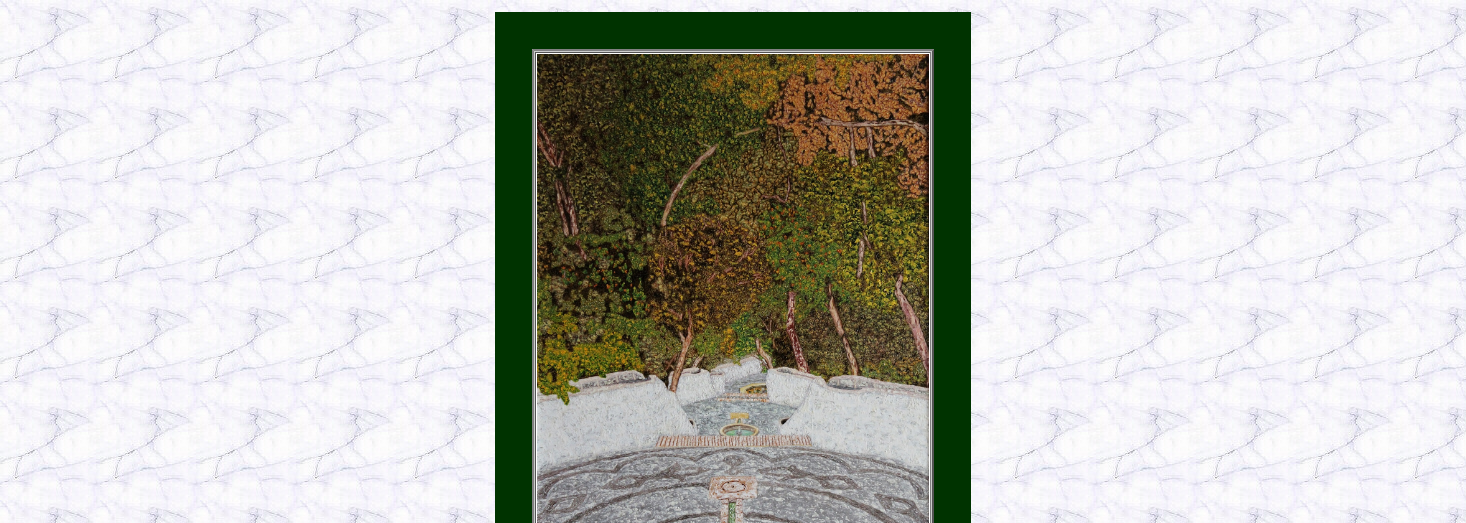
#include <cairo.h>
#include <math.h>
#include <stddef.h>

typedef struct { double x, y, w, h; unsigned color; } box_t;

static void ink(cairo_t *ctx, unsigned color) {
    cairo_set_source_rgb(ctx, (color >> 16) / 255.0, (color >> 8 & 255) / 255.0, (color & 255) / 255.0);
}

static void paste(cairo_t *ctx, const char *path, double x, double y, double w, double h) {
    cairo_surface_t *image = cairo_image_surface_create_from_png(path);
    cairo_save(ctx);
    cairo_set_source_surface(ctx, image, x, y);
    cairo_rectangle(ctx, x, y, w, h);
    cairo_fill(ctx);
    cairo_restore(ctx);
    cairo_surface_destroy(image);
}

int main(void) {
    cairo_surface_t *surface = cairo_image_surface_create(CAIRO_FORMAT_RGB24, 1466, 523);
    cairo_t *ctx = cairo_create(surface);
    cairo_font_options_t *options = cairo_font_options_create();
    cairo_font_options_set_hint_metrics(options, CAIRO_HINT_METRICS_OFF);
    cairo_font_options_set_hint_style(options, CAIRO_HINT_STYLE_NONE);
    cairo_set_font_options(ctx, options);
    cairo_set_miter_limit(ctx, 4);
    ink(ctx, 0xFFFFFF);
    cairo_paint(ctx);
    paste(ctx, "media/1.png", 0, 0, 1466, 523);
    ink(ctx, 0x003300);
    cairo_rectangle(ctx, 495, 12, 476, 511);
    cairo_fill(ctx);
    ink(ctx, 0xCCCCCC);
    cairo_rectangle(ctx, 532, 49, 402, 474);
    cairo_fill(ctx);
    ink(ctx, 0x808080);
    cairo_new_path(ctx);
    cairo_move_to(ctx, 532, 49);
    cairo_line_to(ctx, 934, 49);
    cairo_line_to(ctx, 932, 51);
    cairo_line_to(ctx, 534, 51);
    cairo_close_path(ctx);
    cairo_fill(ctx);
    ink(ctx, 0x555555);
    cairo_new_path(ctx);
    cairo_move_to(ctx, 934, 49);
    cairo_line_to(ctx, 934, 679);
    cairo_line_to(ctx, 932, 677);
    cairo_line_to(ctx, 932, 51);
    cairo_close_path(ctx);
    cairo_fill(ctx);
    ink(ctx, 0x808080);
    cairo_new_path(ctx);
    cairo_move_to(ctx, 532, 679);
    cairo_line_to(ctx, 532, 49);
    cairo_line_to(ctx, 534, 51);
    cairo_line_to(ctx, 534, 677);
    cairo_close_path(ctx);
    cairo_fill(ctx);
    {
        static const box_t items[] = {
            {536, 53, 394, 470, 0xFFFFFF},
            {535, 52, 396, 1, 0x555555},
            {930, 52, 1, 471, 0x808080},
            {535, 52, 1, 471, 0x555555},
        };
        for (size_t i = 0; i < sizeof items / sizeof *items; i++) {
            ink(ctx, items[i].color);
            cairo_rectangle(ctx, items[i].x, items[i].y, items[i].w, items[i].h);
            cairo_fill(ctx);
        }
    }
    paste(ctx, "media/2.png", 537, 54, 392, 469);
    cairo_surface_write_to_png(surface, "image.png");
    cairo_font_options_destroy(options);
    cairo_destroy(ctx);
    cairo_surface_destroy(surface);
    return 0;
}
